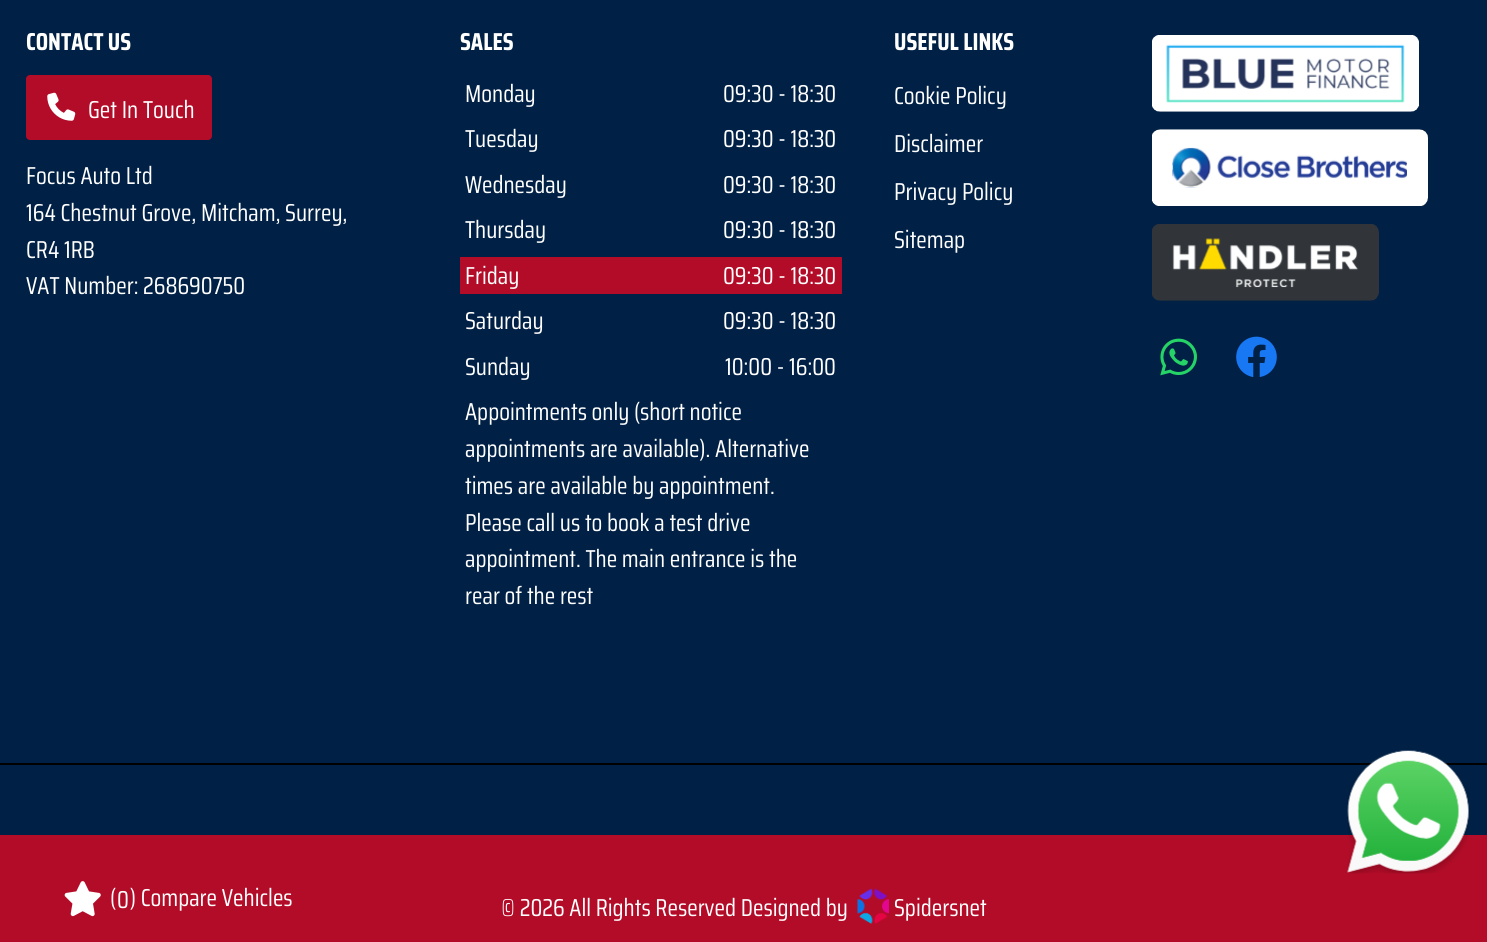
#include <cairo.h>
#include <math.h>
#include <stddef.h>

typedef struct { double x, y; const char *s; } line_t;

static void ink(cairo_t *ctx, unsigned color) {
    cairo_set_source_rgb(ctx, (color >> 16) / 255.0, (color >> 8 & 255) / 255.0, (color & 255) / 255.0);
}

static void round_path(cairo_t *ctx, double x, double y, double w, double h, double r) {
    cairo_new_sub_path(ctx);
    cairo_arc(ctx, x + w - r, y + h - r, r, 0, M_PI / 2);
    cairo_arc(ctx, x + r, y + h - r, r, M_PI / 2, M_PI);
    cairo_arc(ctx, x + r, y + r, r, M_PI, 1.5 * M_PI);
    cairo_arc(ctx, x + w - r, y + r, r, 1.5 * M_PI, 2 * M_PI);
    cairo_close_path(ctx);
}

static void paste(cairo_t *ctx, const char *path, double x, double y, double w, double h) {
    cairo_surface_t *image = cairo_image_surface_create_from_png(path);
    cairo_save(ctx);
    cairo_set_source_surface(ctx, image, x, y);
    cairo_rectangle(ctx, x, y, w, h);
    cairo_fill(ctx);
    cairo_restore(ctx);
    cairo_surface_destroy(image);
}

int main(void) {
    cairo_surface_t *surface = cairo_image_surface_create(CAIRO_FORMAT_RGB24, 1487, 942);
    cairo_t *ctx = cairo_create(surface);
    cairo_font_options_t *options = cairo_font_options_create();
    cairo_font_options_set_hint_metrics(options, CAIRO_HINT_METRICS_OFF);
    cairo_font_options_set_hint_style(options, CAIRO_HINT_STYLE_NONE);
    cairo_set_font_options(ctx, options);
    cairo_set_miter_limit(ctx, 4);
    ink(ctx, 0x002045);
    cairo_paint(ctx);
    cairo_select_font_face(ctx, "Saira Condensed", CAIRO_FONT_SLANT_NORMAL, CAIRO_FONT_WEIGHT_BOLD);
    cairo_set_font_size(ctx, 24.5);
    ink(ctx, 0xFFFFFF);
    cairo_move_to(ctx, 26, 50);
    cairo_show_text(ctx, "CONTACT US");
    ink(ctx, 0xB30C28);
    round_path(ctx, 26, 75, 186, 65, 4);
    cairo_fill(ctx);
    paste(ctx, "media/1.png", 47, 92, 29, 29);
    cairo_select_font_face(ctx, "Saira Condensed", CAIRO_FONT_SLANT_NORMAL, CAIRO_FONT_WEIGHT_NORMAL);
    ink(ctx, 0xFFFFFF);
    {
        static const line_t items[] = {
            {88, 118, "Get In Touch"},
            {26, 184, "Focus Auto Ltd"},
            {26, 221, "164 Chestnut Grove, Mitcham, Surrey,"},
            {26, 258, "CR4 1RB"},
            {26, 294, "VAT Number: 268690750"},
        };
        for (size_t i = 0; i < sizeof items / sizeof *items; i++) {
            cairo_move_to(ctx, items[i].x, items[i].y);
            cairo_show_text(ctx, items[i].s);
        }
    }
    cairo_select_font_face(ctx, "Saira Condensed", CAIRO_FONT_SLANT_NORMAL, CAIRO_FONT_WEIGHT_BOLD);
    cairo_move_to(ctx, 460, 50);
    cairo_show_text(ctx, "SALES");
    cairo_select_font_face(ctx, "Saira Condensed", CAIRO_FONT_SLANT_NORMAL, CAIRO_FONT_WEIGHT_NORMAL);
    {
        static const line_t items[] = {
            {465, 102, "Monday"},
            {723, 102, "09:30 - 18:30"},
            {465, 147, "Tuesday"},
            {723, 147, "09:30 - 18:30"},
            {465, 193, "Wednesday"},
            {723, 193, "09:30 - 18:30"},
            {465, 238, "Thursday"},
            {723, 238, "09:30 - 18:30"},
        };
        for (size_t i = 0; i < sizeof items / sizeof *items; i++) {
            cairo_move_to(ctx, items[i].x, items[i].y);
            cairo_show_text(ctx, items[i].s);
        }
    }
    ink(ctx, 0xB30C28);
    cairo_rectangle(ctx, 460, 257, 382, 37);
    cairo_fill(ctx);
    ink(ctx, 0xFFFFFF);
    {
        static const line_t items[] = {
            {465, 284, "Friday"},
            {723, 284, "09:30 - 18:30"},
            {465, 329, "Saturday"},
            {723, 329, "09:30 - 18:30"},
            {465, 375, "Sunday"},
            {725, 375, "10:00 - 16:00"},
            {465, 420, "Appointments only (short notice"},
            {465, 457, "appointments are available). Alternative"},
            {465, 494, "times are available by appointment."},
            {465, 531, "Please call us to book a test drive"},
            {465, 567, "appointment. The main entrance is the"},
            {465, 604, "rear of the rest"},
        };
        for (size_t i = 0; i < sizeof items / sizeof *items; i++) {
            cairo_move_to(ctx, items[i].x, items[i].y);
            cairo_show_text(ctx, items[i].s);
        }
    }
    cairo_select_font_face(ctx, "Saira Condensed", CAIRO_FONT_SLANT_NORMAL, CAIRO_FONT_WEIGHT_BOLD);
    cairo_move_to(ctx, 894, 50);
    cairo_show_text(ctx, "USEFUL LINKS");
    cairo_select_font_face(ctx, "Saira Condensed", CAIRO_FONT_SLANT_NORMAL, CAIRO_FONT_WEIGHT_NORMAL);
    {
        static const line_t items[] = {
            {894, 104, "Cookie Policy"},
            {894, 152, "Disclaimer"},
            {894, 200, "Privacy Policy"},
            {894, 248, "Sitemap"},
        };
        for (size_t i = 0; i < sizeof items / sizeof *items; i++) {
            cairo_move_to(ctx, items[i].x, items[i].y);
            cairo_show_text(ctx, items[i].s);
        }
    }
    paste(ctx, "media/2.png", 1152, 35, 267, 77);
    paste(ctx, "media/3.png", 1152, 129, 276, 77);
    paste(ctx, "media/4.png", 1152, 224, 227, 77);
    paste(ctx, "media/5.png", 1160, 338, 37, 38);
    paste(ctx, "media/6.png", 1236, 336, 41, 41);
    ink(ctx, 0x000000);
    cairo_rectangle(ctx, 0, 763, 1487, 2);
    cairo_fill(ctx);
    ink(ctx, 0xB30C28);
    cairo_rectangle(ctx, 0, 835, 1487, 107);
    cairo_fill(ctx);
    ink(ctx, 0xFFFFFF);
    cairo_move_to(ctx, 501, 916);
    cairo_show_text(ctx, "© 2026 All Rights Reserved Designed by");
    paste(ctx, "media/7.png", 857, 888, 32, 36);
    cairo_move_to(ctx, 894, 916);
    cairo_show_text(ctx, "Spidersnet");
    paste(ctx, "media/8.png", 64, 881, 37, 36);
    {
        static const line_t items[] = {
            {110, 906, "("},
            {117, 908, "0"},
            {130, 906, ") Compare Vehicles"},
        };
        for (size_t i = 0; i < sizeof items / sizeof *items; i++) {
            cairo_move_to(ctx, items[i].x, items[i].y);
            cairo_show_text(ctx, items[i].s);
        }
    }
    paste(ctx, "media/9.png", 1347, 750, 123, 124);
    cairo_surface_write_to_png(surface, "image.png");
    cairo_font_options_destroy(options);
    cairo_destroy(ctx);
    cairo_surface_destroy(surface);
    return 0;
}
